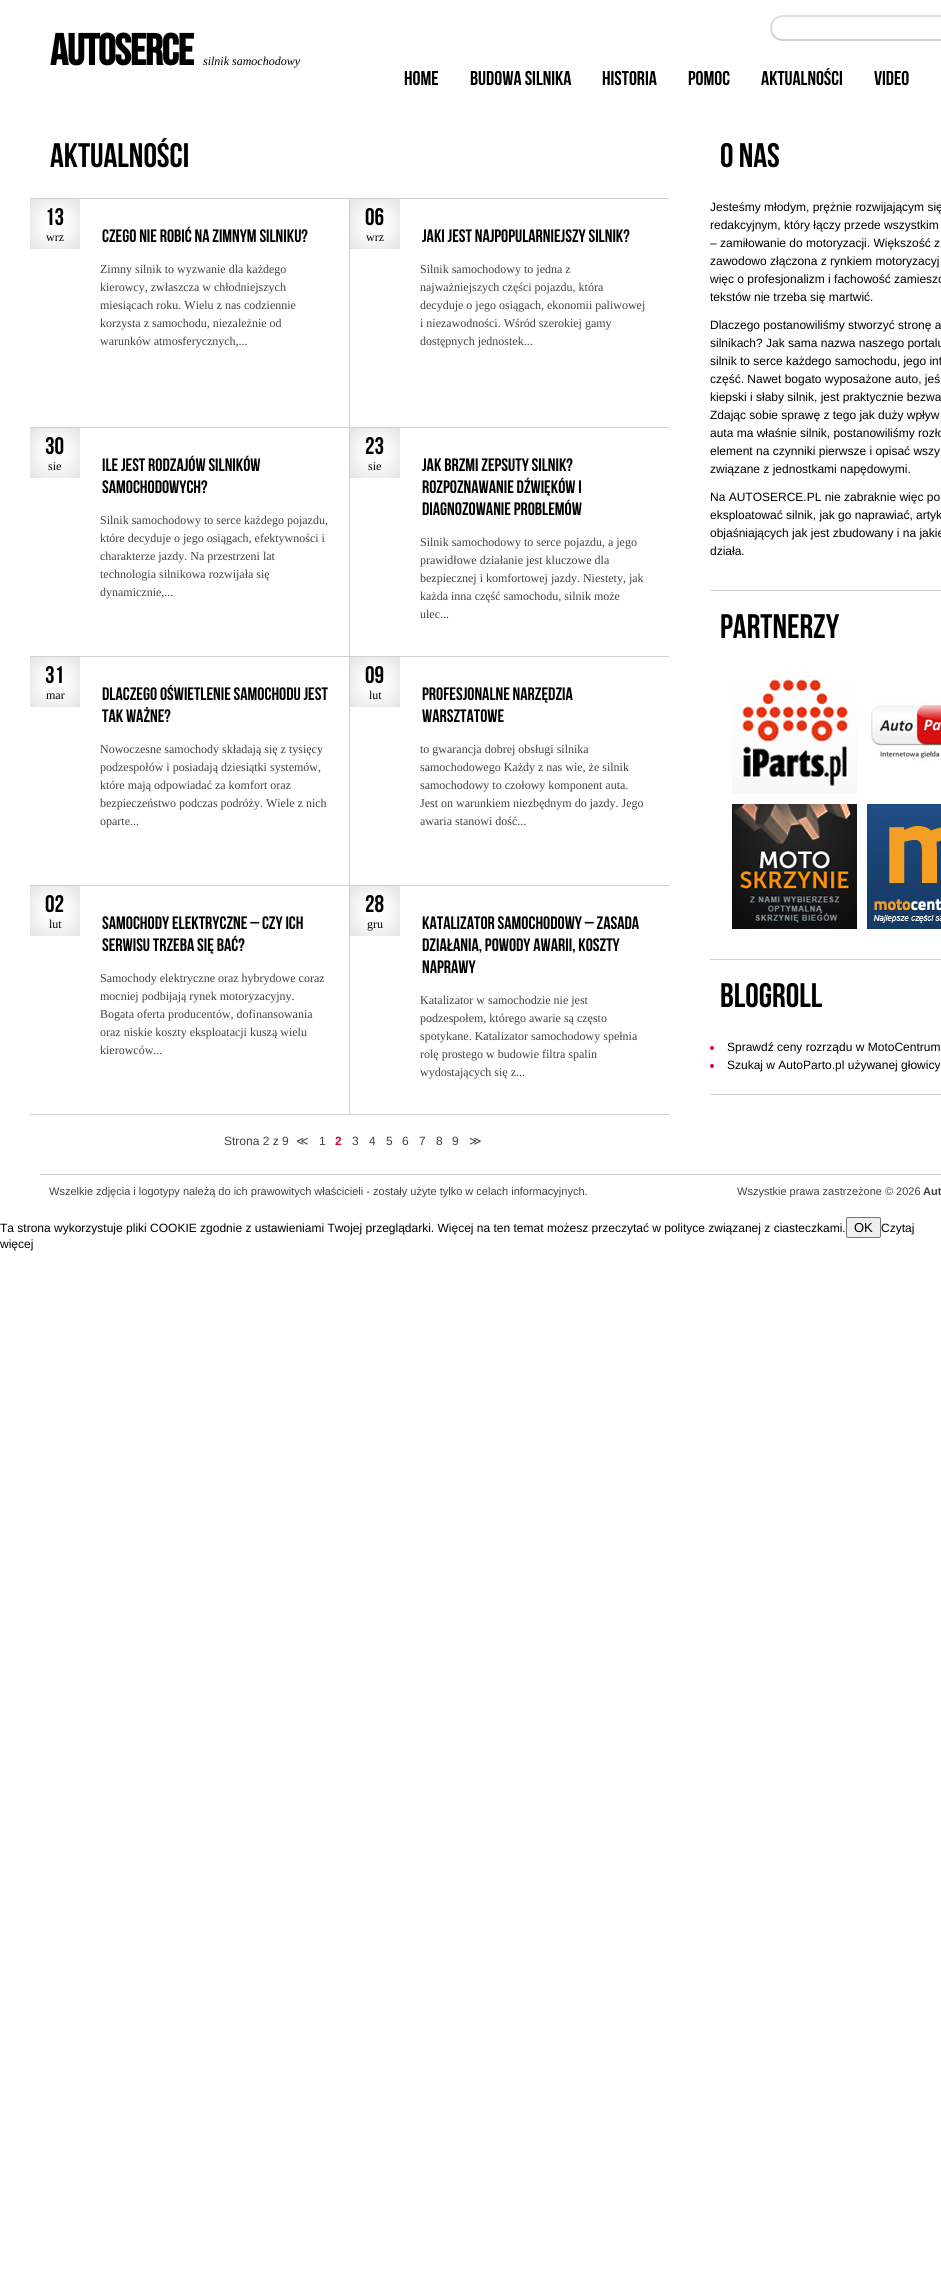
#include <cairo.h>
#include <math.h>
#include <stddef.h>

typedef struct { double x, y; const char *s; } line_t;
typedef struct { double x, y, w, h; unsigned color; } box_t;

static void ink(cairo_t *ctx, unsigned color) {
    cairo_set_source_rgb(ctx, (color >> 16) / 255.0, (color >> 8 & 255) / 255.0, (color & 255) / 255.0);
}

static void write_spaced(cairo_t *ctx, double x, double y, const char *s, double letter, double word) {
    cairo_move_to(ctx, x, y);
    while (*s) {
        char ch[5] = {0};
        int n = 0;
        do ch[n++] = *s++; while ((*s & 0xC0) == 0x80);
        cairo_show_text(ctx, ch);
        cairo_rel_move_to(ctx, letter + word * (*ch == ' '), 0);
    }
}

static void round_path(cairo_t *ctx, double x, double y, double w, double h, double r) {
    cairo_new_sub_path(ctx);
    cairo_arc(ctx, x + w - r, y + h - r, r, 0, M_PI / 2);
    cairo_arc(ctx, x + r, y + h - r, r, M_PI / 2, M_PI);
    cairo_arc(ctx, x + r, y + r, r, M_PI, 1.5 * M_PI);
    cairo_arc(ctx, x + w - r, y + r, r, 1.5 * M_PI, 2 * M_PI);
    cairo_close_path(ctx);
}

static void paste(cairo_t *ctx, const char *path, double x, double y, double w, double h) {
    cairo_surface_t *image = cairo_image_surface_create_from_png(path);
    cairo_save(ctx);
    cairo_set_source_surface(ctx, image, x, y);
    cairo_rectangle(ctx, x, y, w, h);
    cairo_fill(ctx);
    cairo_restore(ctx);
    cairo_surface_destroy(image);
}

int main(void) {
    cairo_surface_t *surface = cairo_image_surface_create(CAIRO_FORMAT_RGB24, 941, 2290);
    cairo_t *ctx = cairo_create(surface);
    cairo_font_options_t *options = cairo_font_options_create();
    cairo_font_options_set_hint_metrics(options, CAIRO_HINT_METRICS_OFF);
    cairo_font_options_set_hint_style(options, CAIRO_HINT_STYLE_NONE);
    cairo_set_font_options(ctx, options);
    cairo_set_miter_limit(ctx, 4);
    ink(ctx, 0xFFFFFF);
    cairo_paint(ctx);
    paste(ctx, "media/1.png", 770, 15, 171, 26);
    cairo_select_font_face(ctx, "Bebas Neue", CAIRO_FONT_SLANT_NORMAL, CAIRO_FONT_WEIGHT_BOLD);
    cairo_set_font_size(ctx, 44);
    ink(ctx, 0x000000);
    write_spaced(ctx, 50, 65, "AUTOSERCE", -1, 0);
    cairo_select_font_face(ctx, "Liberation Serif", CAIRO_FONT_SLANT_ITALIC, CAIRO_FONT_WEIGHT_NORMAL);
    cairo_set_font_size(ctx, 12);
    cairo_move_to(ctx, 203, 65);
    cairo_show_text(ctx, "silnik samochodowy");
    cairo_select_font_face(ctx, "Bebas Neue", CAIRO_FONT_SLANT_NORMAL, CAIRO_FONT_WEIGHT_NORMAL);
    cairo_set_font_size(ctx, 20);
    {
        static const line_t items[] = {
            {404, 85, "HOME"},
            {470, 85, "BUDOWA SILNIKA"},
            {602, 85, "HISTORIA"},
            {688, 85, "POMOC"},
            {761, 85, "AKTUALNOŚCI"},
            {874, 85, "VIDEO"},
        };
        for (size_t i = 0; i < sizeof items / sizeof *items; i++) {
            cairo_move_to(ctx, items[i].x, items[i].y);
            cairo_show_text(ctx, items[i].s);
        }
    }
    cairo_set_font_size(ctx, 34);
    cairo_move_to(ctx, 50, 167);
    cairo_show_text(ctx, "AKTUALNOŚCI");
    {
        static const box_t items[] = {
            {30, 198, 639, 1, 0xD1D1D1},
            {30, 427, 639, 1, 0xD1D1D1},
            {349, 199, 1, 228, 0xD1D1D1},
        };
        for (size_t i = 0; i < sizeof items / sizeof *items; i++) {
            ink(ctx, items[i].color);
            cairo_rectangle(ctx, items[i].x, items[i].y, items[i].w, items[i].h);
            cairo_fill(ctx);
        }
    }
    paste(ctx, "media/2.png", 30, 199, 50, 50);
    cairo_set_font_size(ctx, 24);
    ink(ctx, 0x000000);
    cairo_move_to(ctx, 45, 225);
    cairo_show_text(ctx, "13");
    cairo_select_font_face(ctx, "Liberation Serif", CAIRO_FONT_SLANT_NORMAL, CAIRO_FONT_WEIGHT_NORMAL);
    cairo_set_font_size(ctx, 12);
    cairo_move_to(ctx, 46, 241);
    cairo_show_text(ctx, "wrz");
    cairo_select_font_face(ctx, "Bebas Neue", CAIRO_FONT_SLANT_NORMAL, CAIRO_FONT_WEIGHT_NORMAL);
    cairo_set_font_size(ctx, 18);
    cairo_move_to(ctx, 102, 242);
    cairo_show_text(ctx, "CZEGO NIE ROBIĆ NA ZIMNYM SILNIKU?");
    cairo_select_font_face(ctx, "Liberation Serif", CAIRO_FONT_SLANT_NORMAL, CAIRO_FONT_WEIGHT_NORMAL);
    cairo_set_font_size(ctx, 12);
    ink(ctx, 0x414141);
    {
        static const line_t items[] = {
            {100, 273, "Zimny silnik to wyzwanie dla każdego"},
            {100, 291, "kierowcy, zwłaszcza w chłodniejszych"},
            {100, 309, "miesiącach roku. Wielu z nas codziennie"},
            {100, 327, "korzysta z samochodu, niezależnie od"},
            {100, 345, "warunków atmosferycznych,..."},
        };
        for (size_t i = 0; i < sizeof items / sizeof *items; i++) {
            cairo_move_to(ctx, items[i].x, items[i].y);
            cairo_show_text(ctx, items[i].s);
        }
    }
    paste(ctx, "media/2.png", 350, 199, 50, 50);
    cairo_select_font_face(ctx, "Bebas Neue", CAIRO_FONT_SLANT_NORMAL, CAIRO_FONT_WEIGHT_NORMAL);
    cairo_set_font_size(ctx, 24);
    ink(ctx, 0x000000);
    cairo_move_to(ctx, 365, 225);
    cairo_show_text(ctx, "06");
    cairo_select_font_face(ctx, "Liberation Serif", CAIRO_FONT_SLANT_NORMAL, CAIRO_FONT_WEIGHT_NORMAL);
    cairo_set_font_size(ctx, 12);
    cairo_move_to(ctx, 366, 241);
    cairo_show_text(ctx, "wrz");
    cairo_select_font_face(ctx, "Bebas Neue", CAIRO_FONT_SLANT_NORMAL, CAIRO_FONT_WEIGHT_NORMAL);
    cairo_set_font_size(ctx, 18);
    cairo_move_to(ctx, 422, 242);
    cairo_show_text(ctx, "JAKI JEST NAJPOPULARNIEJSZY SILNIK?");
    cairo_select_font_face(ctx, "Liberation Serif", CAIRO_FONT_SLANT_NORMAL, CAIRO_FONT_WEIGHT_NORMAL);
    cairo_set_font_size(ctx, 12);
    ink(ctx, 0x414141);
    {
        static const line_t items[] = {
            {420, 273, "Silnik samochodowy to jedna z"},
            {420, 291, "najważniejszych części pojazdu, która"},
            {420, 309, "decyduje o jego osiągach, ekonomii paliwowej"},
            {420, 327, "i niezawodności. Wśród szerokiej gamy"},
            {420, 345, "dostępnych jednostek..."},
        };
        for (size_t i = 0; i < sizeof items / sizeof *items; i++) {
            cairo_move_to(ctx, items[i].x, items[i].y);
            cairo_show_text(ctx, items[i].s);
        }
    }
    ink(ctx, 0xD1D1D1);
    cairo_rectangle(ctx, 30, 656, 639, 1);
    cairo_fill(ctx);
    cairo_rectangle(ctx, 349, 428, 1, 228);
    cairo_fill(ctx);
    paste(ctx, "media/2.png", 30, 428, 50, 50);
    cairo_select_font_face(ctx, "Bebas Neue", CAIRO_FONT_SLANT_NORMAL, CAIRO_FONT_WEIGHT_NORMAL);
    cairo_set_font_size(ctx, 24);
    ink(ctx, 0x000000);
    cairo_move_to(ctx, 45, 454);
    cairo_show_text(ctx, "30");
    cairo_select_font_face(ctx, "Liberation Serif", CAIRO_FONT_SLANT_NORMAL, CAIRO_FONT_WEIGHT_NORMAL);
    cairo_set_font_size(ctx, 12);
    cairo_move_to(ctx, 48, 470);
    cairo_show_text(ctx, "sie");
    cairo_select_font_face(ctx, "Bebas Neue", CAIRO_FONT_SLANT_NORMAL, CAIRO_FONT_WEIGHT_NORMAL);
    cairo_set_font_size(ctx, 18);
    cairo_move_to(ctx, 102, 471);
    cairo_show_text(ctx, "ILE JEST RODZAJÓW SILNIKÓW");
    cairo_move_to(ctx, 102, 493);
    cairo_show_text(ctx, "SAMOCHODOWYCH?");
    cairo_select_font_face(ctx, "Liberation Serif", CAIRO_FONT_SLANT_NORMAL, CAIRO_FONT_WEIGHT_NORMAL);
    cairo_set_font_size(ctx, 12);
    ink(ctx, 0x414141);
    {
        static const line_t items[] = {
            {100, 524, "Silnik samochodowy to serce każdego pojazdu,"},
            {100, 542, "które decyduje o jego osiągach, efektywności i"},
            {100, 560, "charakterze jazdy. Na przestrzeni lat"},
            {100, 578, "technologia silnikowa rozwijała się"},
            {100, 596, "dynamicznie,..."},
        };
        for (size_t i = 0; i < sizeof items / sizeof *items; i++) {
            cairo_move_to(ctx, items[i].x, items[i].y);
            cairo_show_text(ctx, items[i].s);
        }
    }
    paste(ctx, "media/2.png", 350, 428, 50, 50);
    cairo_select_font_face(ctx, "Bebas Neue", CAIRO_FONT_SLANT_NORMAL, CAIRO_FONT_WEIGHT_NORMAL);
    cairo_set_font_size(ctx, 24);
    ink(ctx, 0x000000);
    cairo_move_to(ctx, 365, 454);
    cairo_show_text(ctx, "23");
    cairo_select_font_face(ctx, "Liberation Serif", CAIRO_FONT_SLANT_NORMAL, CAIRO_FONT_WEIGHT_NORMAL);
    cairo_set_font_size(ctx, 12);
    cairo_move_to(ctx, 368, 470);
    cairo_show_text(ctx, "sie");
    cairo_select_font_face(ctx, "Bebas Neue", CAIRO_FONT_SLANT_NORMAL, CAIRO_FONT_WEIGHT_NORMAL);
    cairo_set_font_size(ctx, 18);
    {
        static const line_t items[] = {
            {422, 471, "JAK BRZMI ZEPSUTY SILNIK?"},
            {422, 493, "ROZPOZNAWANIE DŹWIĘKÓW I"},
            {422, 515, "DIAGNOZOWANIE PROBLEMÓW"},
        };
        for (size_t i = 0; i < sizeof items / sizeof *items; i++) {
            cairo_move_to(ctx, items[i].x, items[i].y);
            cairo_show_text(ctx, items[i].s);
        }
    }
    cairo_select_font_face(ctx, "Liberation Serif", CAIRO_FONT_SLANT_NORMAL, CAIRO_FONT_WEIGHT_NORMAL);
    cairo_set_font_size(ctx, 12);
    ink(ctx, 0x414141);
    {
        static const line_t items[] = {
            {420, 546, "Silnik samochodowy to serce pojazdu, a jego"},
            {420, 564, "prawidłowe działanie jest kluczowe dla"},
            {420, 582, "bezpiecznej i komfortowej jazdy. Niestety, jak"},
            {420, 600, "każda inna część samochodu, silnik może"},
            {420, 618, "ulec..."},
        };
        for (size_t i = 0; i < sizeof items / sizeof *items; i++) {
            cairo_move_to(ctx, items[i].x, items[i].y);
            cairo_show_text(ctx, items[i].s);
        }
    }
    ink(ctx, 0xD1D1D1);
    cairo_rectangle(ctx, 30, 885, 639, 1);
    cairo_fill(ctx);
    cairo_rectangle(ctx, 349, 657, 1, 228);
    cairo_fill(ctx);
    paste(ctx, "media/2.png", 30, 657, 50, 50);
    cairo_select_font_face(ctx, "Bebas Neue", CAIRO_FONT_SLANT_NORMAL, CAIRO_FONT_WEIGHT_NORMAL);
    cairo_set_font_size(ctx, 24);
    ink(ctx, 0x000000);
    cairo_move_to(ctx, 45, 683);
    cairo_show_text(ctx, "31");
    cairo_select_font_face(ctx, "Liberation Serif", CAIRO_FONT_SLANT_NORMAL, CAIRO_FONT_WEIGHT_NORMAL);
    cairo_set_font_size(ctx, 12);
    cairo_move_to(ctx, 46, 699);
    cairo_show_text(ctx, "mar");
    cairo_select_font_face(ctx, "Bebas Neue", CAIRO_FONT_SLANT_NORMAL, CAIRO_FONT_WEIGHT_NORMAL);
    cairo_set_font_size(ctx, 18);
    cairo_move_to(ctx, 102, 700);
    cairo_show_text(ctx, "DLACZEGO OŚWIETLENIE SAMOCHODU JEST");
    cairo_move_to(ctx, 102, 722);
    cairo_show_text(ctx, "TAK WAŻNE?");
    cairo_select_font_face(ctx, "Liberation Serif", CAIRO_FONT_SLANT_NORMAL, CAIRO_FONT_WEIGHT_NORMAL);
    cairo_set_font_size(ctx, 12);
    ink(ctx, 0x414141);
    {
        static const line_t items[] = {
            {100, 753, "Nowoczesne samochody składają się z tysięcy"},
            {100, 771, "podzespołów i posiadają dziesiątki systemów,"},
            {100, 789, "które mają odpowiadać za komfort oraz"},
            {100, 807, "bezpieczeństwo podczas podróży. Wiele z nich"},
            {100, 825, "oparte..."},
        };
        for (size_t i = 0; i < sizeof items / sizeof *items; i++) {
            cairo_move_to(ctx, items[i].x, items[i].y);
            cairo_show_text(ctx, items[i].s);
        }
    }
    paste(ctx, "media/2.png", 350, 657, 50, 50);
    cairo_select_font_face(ctx, "Bebas Neue", CAIRO_FONT_SLANT_NORMAL, CAIRO_FONT_WEIGHT_NORMAL);
    cairo_set_font_size(ctx, 24);
    ink(ctx, 0x000000);
    cairo_move_to(ctx, 365, 683);
    cairo_show_text(ctx, "09");
    cairo_select_font_face(ctx, "Liberation Serif", CAIRO_FONT_SLANT_NORMAL, CAIRO_FONT_WEIGHT_NORMAL);
    cairo_set_font_size(ctx, 12);
    cairo_move_to(ctx, 369, 699);
    cairo_show_text(ctx, "lut");
    cairo_select_font_face(ctx, "Bebas Neue", CAIRO_FONT_SLANT_NORMAL, CAIRO_FONT_WEIGHT_NORMAL);
    cairo_set_font_size(ctx, 18);
    cairo_move_to(ctx, 422, 700);
    cairo_show_text(ctx, "PROFESJONALNE NARZĘDZIA");
    cairo_move_to(ctx, 422, 722);
    cairo_show_text(ctx, "WARSZTATOWE");
    cairo_select_font_face(ctx, "Liberation Serif", CAIRO_FONT_SLANT_NORMAL, CAIRO_FONT_WEIGHT_NORMAL);
    cairo_set_font_size(ctx, 12);
    ink(ctx, 0x414141);
    {
        static const line_t items[] = {
            {420, 753, "to gwarancja dobrej obsługi silnika"},
            {420, 771, "samochodowego Każdy z nas wie, że silnik"},
            {420, 789, "samochodowy to czołowy komponent auta."},
            {420, 807, "Jest on warunkiem niezbędnym do jazdy. Jego"},
            {420, 825, "awaria stanowi dość..."},
        };
        for (size_t i = 0; i < sizeof items / sizeof *items; i++) {
            cairo_move_to(ctx, items[i].x, items[i].y);
            cairo_show_text(ctx, items[i].s);
        }
    }
    ink(ctx, 0xD1D1D1);
    cairo_rectangle(ctx, 30, 1114, 639, 1);
    cairo_fill(ctx);
    cairo_rectangle(ctx, 349, 886, 1, 228);
    cairo_fill(ctx);
    paste(ctx, "media/2.png", 30, 886, 50, 50);
    cairo_select_font_face(ctx, "Bebas Neue", CAIRO_FONT_SLANT_NORMAL, CAIRO_FONT_WEIGHT_NORMAL);
    cairo_set_font_size(ctx, 24);
    ink(ctx, 0x000000);
    cairo_move_to(ctx, 45, 912);
    cairo_show_text(ctx, "02");
    cairo_select_font_face(ctx, "Liberation Serif", CAIRO_FONT_SLANT_NORMAL, CAIRO_FONT_WEIGHT_NORMAL);
    cairo_set_font_size(ctx, 12);
    cairo_move_to(ctx, 49, 928);
    cairo_show_text(ctx, "lut");
    cairo_select_font_face(ctx, "Bebas Neue", CAIRO_FONT_SLANT_NORMAL, CAIRO_FONT_WEIGHT_NORMAL);
    cairo_set_font_size(ctx, 18);
    cairo_move_to(ctx, 102, 929);
    cairo_show_text(ctx, "SAMOCHODY ELEKTRYCZNE – CZY ICH");
    cairo_move_to(ctx, 102, 951);
    cairo_show_text(ctx, "SERWISU TRZEBA SIĘ BAĆ?");
    cairo_select_font_face(ctx, "Liberation Serif", CAIRO_FONT_SLANT_NORMAL, CAIRO_FONT_WEIGHT_NORMAL);
    cairo_set_font_size(ctx, 12);
    ink(ctx, 0x414141);
    {
        static const line_t items[] = {
            {100, 982, "Samochody elektryczne oraz hybrydowe coraz"},
            {100, 1000, "mocniej podbijają rynek motoryzacyjny."},
            {100, 1018, "Bogata oferta producentów, dofinansowania"},
            {100, 1036, "oraz niskie koszty eksploatacji kuszą wielu"},
            {100, 1054, "kierowców..."},
        };
        for (size_t i = 0; i < sizeof items / sizeof *items; i++) {
            cairo_move_to(ctx, items[i].x, items[i].y);
            cairo_show_text(ctx, items[i].s);
        }
    }
    paste(ctx, "media/2.png", 350, 886, 50, 50);
    cairo_select_font_face(ctx, "Bebas Neue", CAIRO_FONT_SLANT_NORMAL, CAIRO_FONT_WEIGHT_NORMAL);
    cairo_set_font_size(ctx, 24);
    ink(ctx, 0x000000);
    cairo_move_to(ctx, 365, 912);
    cairo_show_text(ctx, "28");
    cairo_select_font_face(ctx, "Liberation Serif", CAIRO_FONT_SLANT_NORMAL, CAIRO_FONT_WEIGHT_NORMAL);
    cairo_set_font_size(ctx, 12);
    cairo_move_to(ctx, 367, 928);
    cairo_show_text(ctx, "gru");
    cairo_select_font_face(ctx, "Bebas Neue", CAIRO_FONT_SLANT_NORMAL, CAIRO_FONT_WEIGHT_NORMAL);
    cairo_set_font_size(ctx, 18);
    {
        static const line_t items[] = {
            {422, 929, "KATALIZATOR SAMOCHODOWY – ZASADA"},
            {422, 951, "DZIAŁANIA, POWODY AWARII, KOSZTY"},
            {422, 973, "NAPRAWY"},
        };
        for (size_t i = 0; i < sizeof items / sizeof *items; i++) {
            cairo_move_to(ctx, items[i].x, items[i].y);
            cairo_show_text(ctx, items[i].s);
        }
    }
    cairo_select_font_face(ctx, "Liberation Serif", CAIRO_FONT_SLANT_NORMAL, CAIRO_FONT_WEIGHT_NORMAL);
    cairo_set_font_size(ctx, 12);
    ink(ctx, 0x414141);
    {
        static const line_t items[] = {
            {420, 1004, "Katalizator w samochodzie nie jest"},
            {420, 1022, "podzespołem, którego awarie są często"},
            {420, 1040, "spotykane. Katalizator samochodowy spełnia"},
            {420, 1058, "rolę prostego w budowie filtra spalin"},
            {420, 1076, "wydostających się z..."},
        };
        for (size_t i = 0; i < sizeof items / sizeof *items; i++) {
            cairo_move_to(ctx, items[i].x, items[i].y);
            cairo_show_text(ctx, items[i].s);
        }
    }
    cairo_select_font_face(ctx, "Liberation Sans", CAIRO_FONT_SLANT_NORMAL, CAIRO_FONT_WEIGHT_NORMAL);
    cairo_move_to(ctx, 224, 1145);
    cairo_show_text(ctx, "Strona 2 z 9");
    cairo_select_font_face(ctx, "DejaVu Sans", CAIRO_FONT_SLANT_NORMAL, CAIRO_FONT_WEIGHT_NORMAL);
    cairo_move_to(ctx, 296, 1145);
    cairo_show_text(ctx, "≪");
    cairo_select_font_face(ctx, "Liberation Sans", CAIRO_FONT_SLANT_NORMAL, CAIRO_FONT_WEIGHT_NORMAL);
    cairo_move_to(ctx, 319, 1145);
    cairo_show_text(ctx, "1");
    cairo_select_font_face(ctx, "Liberation Sans", CAIRO_FONT_SLANT_NORMAL, CAIRO_FONT_WEIGHT_BOLD);
    ink(ctx, 0xE10030);
    cairo_move_to(ctx, 335, 1145);
    cairo_show_text(ctx, "2");
    cairo_select_font_face(ctx, "Liberation Sans", CAIRO_FONT_SLANT_NORMAL, CAIRO_FONT_WEIGHT_NORMAL);
    ink(ctx, 0x414141);
    {
        static const line_t items[] = {
            {352, 1145, "3"},
            {369, 1145, "4"},
            {386, 1145, "5"},
            {402, 1145, "6"},
            {419, 1145, "7"},
            {436, 1145, "8"},
            {452, 1145, "9"},
        };
        for (size_t i = 0; i < sizeof items / sizeof *items; i++) {
            cairo_move_to(ctx, items[i].x, items[i].y);
            cairo_show_text(ctx, items[i].s);
        }
    }
    cairo_select_font_face(ctx, "DejaVu Sans", CAIRO_FONT_SLANT_NORMAL, CAIRO_FONT_WEIGHT_NORMAL);
    cairo_move_to(ctx, 469, 1145);
    cairo_show_text(ctx, "≫");
    ink(ctx, 0xD1D1D1);
    cairo_rectangle(ctx, 710, 590, 231, 1);
    cairo_fill(ctx);
    cairo_select_font_face(ctx, "Bebas Neue", CAIRO_FONT_SLANT_NORMAL, CAIRO_FONT_WEIGHT_NORMAL);
    cairo_set_font_size(ctx, 34);
    ink(ctx, 0x000000);
    cairo_move_to(ctx, 720, 167);
    cairo_show_text(ctx, "O NAS");
    cairo_select_font_face(ctx, "Liberation Sans", CAIRO_FONT_SLANT_NORMAL, CAIRO_FONT_WEIGHT_NORMAL);
    cairo_set_font_size(ctx, 12);
    {
        static const line_t items[] = {
            {710, 211, "Jesteśmy młodym, prężnie rozwijającym się"},
            {710, 229, "redakcyjnym, który łączy przede wszystkim"},
            {710, 247, "– zamiłowanie do motoryzacji. Większość z"},
            {710, 265, "zawodowo złączona z rynkiem motoryzacyj"},
            {710, 283, "więc o profesjonalizm i fachowość zamieszc"},
            {710, 301, "tekstów nie trzeba się martwić."},
            {710, 329, "Dlaczego postanowiliśmy stworzyć stronę a"},
            {710, 347, "silnikach? Jak sama nazwa naszego portalu"},
            {710, 365, "silnik to serce każdego samochodu, jego int"},
            {710, 383, "część. Nawet bogato wyposażone auto, jeś"},
            {710, 401, "kiepski i słaby silnik, jest praktycznie bezwa"},
            {710, 419, "Zdając sobie sprawę z tego jak duży wpływ"},
            {710, 437, "auta ma właśnie silnik, postanowiliśmy rozło"},
            {710, 455, "element na czynniki pierwsze i opisać wszy"},
            {710, 473, "związane z jednostkami napędowymi."},
            {710, 501, "Na AUTOSERCE.PL nie zabraknie więc po"},
            {710, 519, "eksploatować silnik, jak go naprawiać, artyk"},
            {710, 537, "objaśniających jak jest zbudowany i na jakie"},
            {710, 555, "działa."},
        };
        for (size_t i = 0; i < sizeof items / sizeof *items; i++) {
            cairo_move_to(ctx, items[i].x, items[i].y);
            cairo_show_text(ctx, items[i].s);
        }
    }
    ink(ctx, 0xD1D1D1);
    cairo_rectangle(ctx, 710, 959, 231, 1);
    cairo_fill(ctx);
    cairo_select_font_face(ctx, "Bebas Neue", CAIRO_FONT_SLANT_NORMAL, CAIRO_FONT_WEIGHT_NORMAL);
    cairo_set_font_size(ctx, 34);
    ink(ctx, 0x000000);
    cairo_move_to(ctx, 720, 638);
    cairo_show_text(ctx, "PARTNERZY");
    paste(ctx, "media/3.png", 732, 679, 125, 115);
    paste(ctx, "media/4.png", 871, 701, 70, 64);
    paste(ctx, "media/5.png", 732, 804, 125, 125);
    paste(ctx, "media/6.png", 867, 804, 74, 125);
    ink(ctx, 0xD1D1D1);
    cairo_rectangle(ctx, 710, 1094, 231, 1);
    cairo_fill(ctx);
    ink(ctx, 0x000000);
    cairo_move_to(ctx, 720, 1007);
    cairo_show_text(ctx, "BLOGROLL");
    ink(ctx, 0xE10030);
    cairo_new_path(ctx);
    cairo_arc(ctx, 712, 1048, 2, 0, 2 * M_PI);
    cairo_fill(ctx);
    cairo_select_font_face(ctx, "Liberation Sans", CAIRO_FONT_SLANT_NORMAL, CAIRO_FONT_WEIGHT_NORMAL);
    cairo_set_font_size(ctx, 12);
    ink(ctx, 0x000000);
    cairo_move_to(ctx, 727, 1051);
    cairo_show_text(ctx, "Sprawdź ceny rozrządu w MotoCentrum");
    ink(ctx, 0xE10030);
    cairo_new_path(ctx);
    cairo_arc(ctx, 712, 1066, 2, 0, 2 * M_PI);
    cairo_fill(ctx);
    ink(ctx, 0x000000);
    cairo_move_to(ctx, 727, 1069);
    cairo_show_text(ctx, "Szukaj w AutoParto.pl używanej głowicy");
    ink(ctx, 0xD1D1D1);
    cairo_rectangle(ctx, 40, 1174, 901, 1);
    cairo_fill(ctx);
    cairo_set_font_size(ctx, 11);
    ink(ctx, 0x414141);
    cairo_move_to(ctx, 49, 1195);
    cairo_show_text(ctx, "Wszelkie zdjęcia i logotypy należą do ich prawowitych właścicieli - zostały użyte tylko w celach informacyjnych.");
    cairo_move_to(ctx, 737, 1195);
    cairo_show_text(ctx, "Wszystkie prawa zastrzeżone © 2026");
    cairo_select_font_face(ctx, "Liberation Sans", CAIRO_FONT_SLANT_NORMAL, CAIRO_FONT_WEIGHT_BOLD);
    cairo_move_to(ctx, 923, 1195);
    cairo_show_text(ctx, "Aut");
    cairo_select_font_face(ctx, "Liberation Sans", CAIRO_FONT_SLANT_NORMAL, CAIRO_FONT_WEIGHT_NORMAL);
    cairo_set_font_size(ctx, 12);
    ink(ctx, 0x000000);
    cairo_move_to(ctx, 0, 1232);
    cairo_show_text(ctx, "Ta strona wykorzystuje pliki COOKIE zgodnie z ustawieniami Twojej przeglądarki. Więcej na ten temat możesz przeczytać w polityce związanej z ciasteczkami.");
    ink(ctx, 0xEFEFEF);
    round_path(ctx, 846.5, 1217.5, 34, 20, 1.5);
    cairo_fill_preserve(ctx);
    ink(ctx, 0x767676);
    cairo_set_line_width(ctx, 1);
    cairo_stroke(ctx);
    cairo_set_font_size(ctx, 13);
    ink(ctx, 0x000000);
    cairo_move_to(ctx, 854, 1232);
    cairo_show_text(ctx, "OK");
    cairo_set_font_size(ctx, 12);
    cairo_move_to(ctx, 881, 1232);
    cairo_show_text(ctx, "Czytaj");
    cairo_move_to(ctx, 0, 1248);
    cairo_show_text(ctx, "więcej");
    cairo_surface_write_to_png(surface, "image.png");
    cairo_font_options_destroy(options);
    cairo_destroy(ctx);
    cairo_surface_destroy(surface);
    return 0;
}
